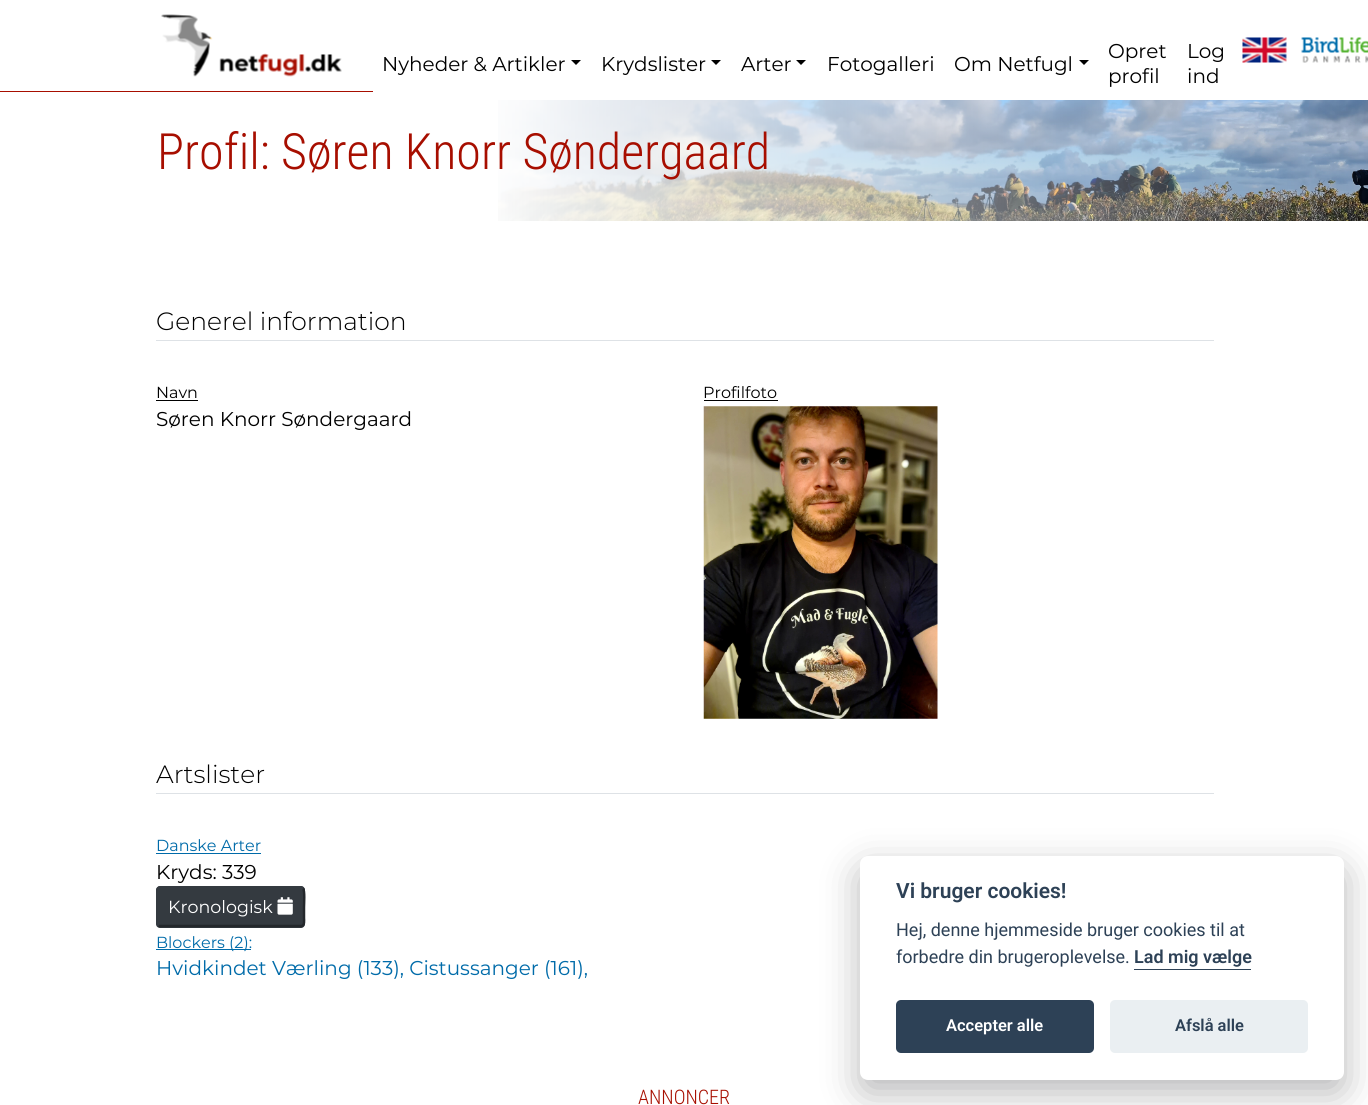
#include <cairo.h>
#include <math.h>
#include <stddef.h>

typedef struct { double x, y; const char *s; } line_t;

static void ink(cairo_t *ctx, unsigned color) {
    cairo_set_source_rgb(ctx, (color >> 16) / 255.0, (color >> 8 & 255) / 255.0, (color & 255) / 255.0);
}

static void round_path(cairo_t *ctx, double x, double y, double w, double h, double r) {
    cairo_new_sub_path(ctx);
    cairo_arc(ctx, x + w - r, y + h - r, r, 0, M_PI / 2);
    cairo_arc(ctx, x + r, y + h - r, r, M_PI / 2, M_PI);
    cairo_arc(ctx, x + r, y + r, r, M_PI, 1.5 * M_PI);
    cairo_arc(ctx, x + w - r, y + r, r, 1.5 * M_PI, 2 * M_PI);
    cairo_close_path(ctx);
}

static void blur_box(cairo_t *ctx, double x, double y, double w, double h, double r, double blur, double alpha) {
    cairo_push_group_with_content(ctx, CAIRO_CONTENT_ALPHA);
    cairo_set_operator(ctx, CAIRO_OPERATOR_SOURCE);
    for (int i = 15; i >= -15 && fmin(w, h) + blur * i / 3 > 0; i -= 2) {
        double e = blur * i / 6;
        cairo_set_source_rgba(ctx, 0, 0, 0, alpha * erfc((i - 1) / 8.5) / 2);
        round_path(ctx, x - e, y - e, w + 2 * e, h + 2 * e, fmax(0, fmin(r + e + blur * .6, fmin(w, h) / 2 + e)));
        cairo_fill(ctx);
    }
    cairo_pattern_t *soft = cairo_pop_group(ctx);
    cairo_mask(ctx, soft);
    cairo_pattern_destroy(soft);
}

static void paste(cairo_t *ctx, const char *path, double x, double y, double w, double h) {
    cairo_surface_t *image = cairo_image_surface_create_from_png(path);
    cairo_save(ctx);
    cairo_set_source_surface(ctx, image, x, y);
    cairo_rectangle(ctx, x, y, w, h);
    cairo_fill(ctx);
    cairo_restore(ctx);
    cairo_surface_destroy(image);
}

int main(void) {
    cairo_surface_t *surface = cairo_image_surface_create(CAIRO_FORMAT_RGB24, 1368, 1105);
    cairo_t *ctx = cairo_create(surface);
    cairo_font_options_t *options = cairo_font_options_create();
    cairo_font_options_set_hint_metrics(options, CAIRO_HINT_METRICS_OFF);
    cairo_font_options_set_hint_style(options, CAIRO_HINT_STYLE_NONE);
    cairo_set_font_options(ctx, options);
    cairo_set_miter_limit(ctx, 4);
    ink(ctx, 0xFFFFFF);
    cairo_paint(ctx);
    ink(ctx, 0xA70E00);
    cairo_rectangle(ctx, 0, 91, 373, 1);
    cairo_fill(ctx);
    paste(ctx, "media/1.png", 161, 14, 181, 63);
    cairo_select_font_face(ctx, "Montserrat", CAIRO_FONT_SLANT_NORMAL, CAIRO_FONT_WEIGHT_NORMAL);
    cairo_set_font_size(ctx, 20);
    ink(ctx, 0x000000);
    cairo_move_to(ctx, 382, 71);
    cairo_show_text(ctx, "Nyheder & Artikler");
    cairo_new_path(ctx);
    cairo_move_to(ctx, 571, 60);
    cairo_line_to(ctx, 581, 60);
    cairo_line_to(ctx, 576, 65);
    cairo_close_path(ctx);
    cairo_fill(ctx);
    cairo_move_to(ctx, 601, 71);
    cairo_show_text(ctx, "Krydslister");
    cairo_new_path(ctx);
    cairo_move_to(ctx, 711, 60);
    cairo_line_to(ctx, 721, 60);
    cairo_line_to(ctx, 716, 65);
    cairo_close_path(ctx);
    cairo_fill(ctx);
    cairo_move_to(ctx, 741, 71);
    cairo_show_text(ctx, "Arter");
    cairo_new_path(ctx);
    cairo_move_to(ctx, 796, 60);
    cairo_line_to(ctx, 806, 60);
    cairo_line_to(ctx, 801, 65);
    cairo_close_path(ctx);
    cairo_fill(ctx);
    cairo_move_to(ctx, 827, 71);
    cairo_show_text(ctx, "Fotogalleri");
    cairo_move_to(ctx, 954, 71);
    cairo_show_text(ctx, "Om Netfugl");
    cairo_new_path(ctx);
    cairo_move_to(ctx, 1079, 60);
    cairo_line_to(ctx, 1089, 60);
    cairo_line_to(ctx, 1084, 65);
    cairo_close_path(ctx);
    cairo_fill(ctx);
    {
        static const line_t items[] = {
            {1108, 58, "Opret"},
            {1108, 83, "profil"},
            {1187, 58, "Log"},
            {1187, 83, "ind"},
        };
        for (size_t i = 0; i < sizeof items / sizeof *items; i++) {
            cairo_move_to(ctx, items[i].x, items[i].y);
            cairo_show_text(ctx, items[i].s);
        }
    }
    paste(ctx, "media/2.png", 1242, 37, 45, 26);
    paste(ctx, "media/3.png", 1301, 37, 67, 26);
    paste(ctx, "media/4.png", 498, 100, 870, 121);
    cairo_select_font_face(ctx, "Roboto Condensed Light", CAIRO_FONT_SLANT_NORMAL, CAIRO_FONT_WEIGHT_NORMAL);
    cairo_set_font_size(ctx, 50);
    ink(ctx, 0xA70E00);
    cairo_move_to(ctx, 157, 169);
    cairo_show_text(ctx, "Profil: Søren Knorr Søndergaard");
    ink(ctx, 0xDEE2E6);
    cairo_rectangle(ctx, 156, 340, 1058, 1);
    cairo_fill(ctx);
    cairo_select_font_face(ctx, "Montserrat Light", CAIRO_FONT_SLANT_NORMAL, CAIRO_FONT_WEIGHT_NORMAL);
    cairo_set_font_size(ctx, 25);
    ink(ctx, 0x000000);
    cairo_move_to(ctx, 156, 330);
    cairo_show_text(ctx, "Generel information");
    cairo_select_font_face(ctx, "Montserrat", CAIRO_FONT_SLANT_NORMAL, CAIRO_FONT_WEIGHT_NORMAL);
    cairo_set_font_size(ctx, 16);
    cairo_move_to(ctx, 156, 398);
    cairo_show_text(ctx, "Navn");
    cairo_rectangle(ctx, 156, 400, 42, 1);
    cairo_fill(ctx);
    cairo_set_font_size(ctx, 20);
    cairo_move_to(ctx, 156, 426);
    cairo_show_text(ctx, "Søren Knorr Søndergaard");
    cairo_set_font_size(ctx, 16);
    cairo_move_to(ctx, 703, 398);
    cairo_show_text(ctx, "Profilfoto");
    cairo_rectangle(ctx, 704, 400, 74, 1);
    cairo_fill(ctx);
    paste(ctx, "media/5.png", 703, 406, 235, 313);
    ink(ctx, 0xDEE2E6);
    cairo_rectangle(ctx, 156, 793, 1058, 1);
    cairo_fill(ctx);
    cairo_select_font_face(ctx, "Montserrat Light", CAIRO_FONT_SLANT_NORMAL, CAIRO_FONT_WEIGHT_NORMAL);
    cairo_set_font_size(ctx, 25);
    ink(ctx, 0x000000);
    cairo_move_to(ctx, 156, 783);
    cairo_show_text(ctx, "Artslister");
    cairo_select_font_face(ctx, "Montserrat", CAIRO_FONT_SLANT_NORMAL, CAIRO_FONT_WEIGHT_NORMAL);
    cairo_set_font_size(ctx, 16);
    ink(ctx, 0x006BA9);
    cairo_move_to(ctx, 156, 851);
    cairo_show_text(ctx, "Danske Arter");
    cairo_rectangle(ctx, 156, 853, 105, 1);
    cairo_fill(ctx);
    cairo_set_font_size(ctx, 20);
    ink(ctx, 0x000000);
    cairo_move_to(ctx, 156, 879);
    cairo_show_text(ctx, "Kryds: 339");
    ink(ctx, 0x343A40);
    round_path(ctx, 156, 886, 149, 42, 4);
    cairo_fill(ctx);
    cairo_new_path(ctx);
    cairo_move_to(ctx, 303, 888.5);
    cairo_curve_to(ctx, 305, 890.5, 304, 904, 304, 907);
    cairo_line_to(ctx, 304, 918);
    cairo_curve_to(ctx, 304, 920, 305, 926, 301, 926);
    cairo_line_to(ctx, 159.5, 926);
    cairo_line_to(ctx, 158.5, 925.5);
    ink(ctx, 0x23272B);
    cairo_set_line_width(ctx, 2.5);
    cairo_stroke(ctx);
    cairo_new_path(ctx);
    cairo_move_to(ctx, 158.5, 925.5);
    cairo_curve_to(ctx, 156.5, 923.5, 157.5, 910, 157.5, 907);
    cairo_line_to(ctx, 157.5, 896);
    cairo_curve_to(ctx, 157.5, 894, 156, 887.5, 160, 887.5);
    cairo_line_to(ctx, 301.5, 887.5);
    cairo_line_to(ctx, 303, 888.5);
    ink(ctx, 0x343A40);
    cairo_stroke(ctx);
    cairo_set_font_size(ctx, 17.5);
    ink(ctx, 0xFFFFFF);
    cairo_move_to(ctx, 168, 913);
    cairo_show_text(ctx, "Kronologisk");
    paste(ctx, "media/6.png", 277, 897, 16, 18);
    ink(ctx, 0x006BA9);
    cairo_rectangle(ctx, 156, 949, 95, 1);
    cairo_fill(ctx);
    cairo_set_font_size(ctx, 16);
    cairo_move_to(ctx, 156, 948);
    cairo_show_text(ctx, "Blockers (2):");
    cairo_set_font_size(ctx, 20);
    cairo_move_to(ctx, 156, 975);
    cairo_show_text(ctx, "Hvidkindet Værling (133), Cistussanger (161),");
    ink(ctx, 0x020203);
    blur_box(ctx, 860, 869, 484, 224, 8, 19, 0.28);
    ink(ctx, 0xFFFFFF);
    round_path(ctx, 860, 856, 484, 224, 8);
    cairo_fill(ctx);
    cairo_select_font_face(ctx, "Roboto SemiBold", CAIRO_FONT_SLANT_NORMAL, CAIRO_FONT_WEIGHT_NORMAL);
    cairo_set_font_size(ctx, 21);
    ink(ctx, 0x2D4156);
    cairo_move_to(ctx, 896, 898);
    cairo_show_text(ctx, "Vi bruger cookies!");
    cairo_select_font_face(ctx, "Roboto", CAIRO_FONT_SLANT_NORMAL, CAIRO_FONT_WEIGHT_NORMAL);
    cairo_set_font_size(ctx, 18);
    cairo_move_to(ctx, 896, 936);
    cairo_show_text(ctx, "Hej, denne hjemmeside bruger cookies til at");
    cairo_move_to(ctx, 896, 963);
    cairo_show_text(ctx, "forbedre din brugeroplevelse.");
    cairo_select_font_face(ctx, "Roboto SemiBold", CAIRO_FONT_SLANT_NORMAL, CAIRO_FONT_WEIGHT_NORMAL);
    cairo_move_to(ctx, 1134, 963);
    cairo_show_text(ctx, "Lad mig vælge");
    cairo_rectangle(ctx, 1134, 969, 117, 1);
    cairo_fill(ctx);
    round_path(ctx, 896, 1000, 198, 53, 5);
    cairo_fill(ctx);
    cairo_set_font_size(ctx, 16.5);
    ink(ctx, 0xFFFFFF);
    cairo_move_to(ctx, 946, 1031);
    cairo_show_text(ctx, "Accepter alle");
    ink(ctx, 0xEAEFF2);
    round_path(ctx, 1110, 1000, 198, 53, 5);
    cairo_fill(ctx);
    ink(ctx, 0x2D4156);
    cairo_move_to(ctx, 1175, 1031);
    cairo_show_text(ctx, "Afslå alle");
    cairo_select_font_face(ctx, "Roboto Condensed Light", CAIRO_FONT_SLANT_NORMAL, CAIRO_FONT_WEIGHT_NORMAL);
    cairo_set_font_size(ctx, 20);
    ink(ctx, 0xA70E00);
    cairo_move_to(ctx, 638, 1104);
    cairo_show_text(ctx, "ANNONCER");
    cairo_surface_write_to_png(surface, "image.png");
    cairo_font_options_destroy(options);
    cairo_destroy(ctx);
    cairo_surface_destroy(surface);
    return 0;
}
